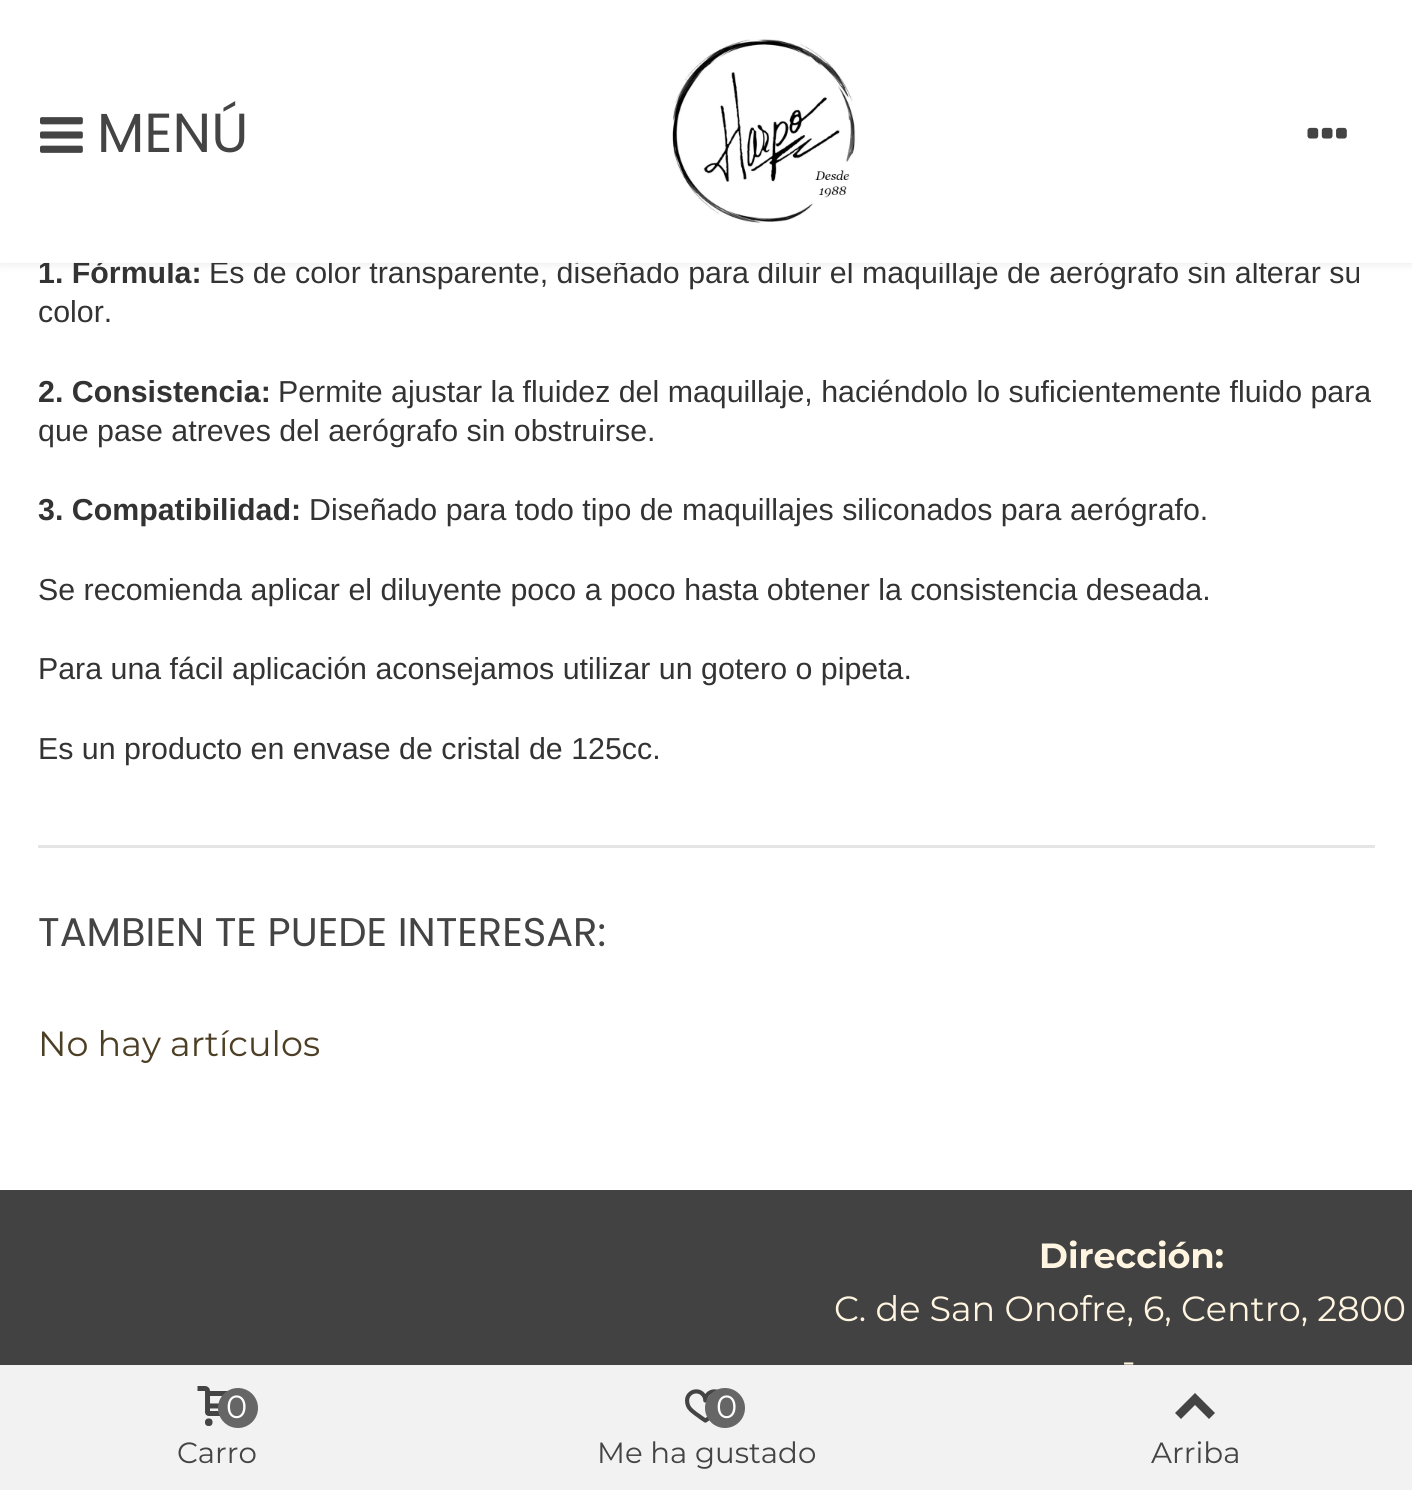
#include <cairo.h>
#include <math.h>
#include <stddef.h>

typedef struct { double x, y; const char *s; } line_t;

static void ink(cairo_t *ctx, unsigned color) {
    cairo_set_source_rgb(ctx, (color >> 16) / 255.0, (color >> 8 & 255) / 255.0, (color & 255) / 255.0);
}

static void round_path(cairo_t *ctx, double x, double y, double w, double h, double r) {
    cairo_new_sub_path(ctx);
    cairo_arc(ctx, x + w - r, y + h - r, r, 0, M_PI / 2);
    cairo_arc(ctx, x + r, y + h - r, r, M_PI / 2, M_PI);
    cairo_arc(ctx, x + r, y + r, r, M_PI, 1.5 * M_PI);
    cairo_arc(ctx, x + w - r, y + r, r, 1.5 * M_PI, 2 * M_PI);
    cairo_close_path(ctx);
}

static void blur_box(cairo_t *ctx, double x, double y, double w, double h, double r, double blur, double alpha) {
    cairo_push_group_with_content(ctx, CAIRO_CONTENT_ALPHA);
    cairo_set_operator(ctx, CAIRO_OPERATOR_SOURCE);
    for (int i = 15; i >= -15 && fmin(w, h) + blur * i / 3 > 0; i -= 2) {
        double e = blur * i / 6;
        cairo_set_source_rgba(ctx, 0, 0, 0, alpha * erfc((i - 1) / 8.5) / 2);
        round_path(ctx, x - e, y - e, w + 2 * e, h + 2 * e, fmax(0, fmin(r + e + blur * .6, fmin(w, h) / 2 + e)));
        cairo_fill(ctx);
    }
    cairo_pattern_t *soft = cairo_pop_group(ctx);
    cairo_mask(ctx, soft);
    cairo_pattern_destroy(soft);
}

static void paste(cairo_t *ctx, const char *path, double x, double y, double w, double h) {
    cairo_surface_t *image = cairo_image_surface_create_from_png(path);
    cairo_save(ctx);
    cairo_set_source_surface(ctx, image, x, y);
    cairo_rectangle(ctx, x, y, w, h);
    cairo_fill(ctx);
    cairo_restore(ctx);
    cairo_surface_destroy(image);
}

int main(void) {
    cairo_surface_t *surface = cairo_image_surface_create(CAIRO_FORMAT_RGB24, 1412, 1490);
    cairo_t *ctx = cairo_create(surface);
    cairo_font_options_t *options = cairo_font_options_create();
    cairo_font_options_set_hint_metrics(options, CAIRO_HINT_METRICS_OFF);
    cairo_font_options_set_hint_style(options, CAIRO_HINT_STYLE_NONE);
    cairo_set_font_options(ctx, options);
    cairo_set_miter_limit(ctx, 4);
    ink(ctx, 0xFFFFFF);
    cairo_paint(ctx);
    cairo_save(ctx);
    cairo_set_fill_rule(ctx, CAIRO_FILL_RULE_EVEN_ODD);
    cairo_new_path(ctx);
    cairo_move_to(ctx, 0, 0);
    cairo_line_to(ctx, 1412, 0);
    cairo_line_to(ctx, 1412, 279);
    cairo_line_to(ctx, 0, 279);
    cairo_close_path(ctx);
    cairo_move_to(ctx, 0, 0);
    cairo_line_to(ctx, 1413, 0);
    cairo_line_to(ctx, 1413, 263);
    cairo_line_to(ctx, 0, 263);
    cairo_close_path(ctx);
    cairo_clip(ctx);
    ink(ctx, 0x000000);
    blur_box(ctx, 0, 0, 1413, 263, 0, 5, 0.1);
    cairo_restore(ctx);
    cairo_select_font_face(ctx, "Liberation Sans", CAIRO_FONT_SLANT_NORMAL, CAIRO_FONT_WEIGHT_BOLD);
    cairo_set_font_size(ctx, 30.35);
    ink(ctx, 0x333333);
    cairo_move_to(ctx, 38, 283);
    cairo_show_text(ctx, "1. Fórmula:");
    cairo_select_font_face(ctx, "Liberation Sans", CAIRO_FONT_SLANT_NORMAL, CAIRO_FONT_WEIGHT_NORMAL);
    cairo_move_to(ctx, 209, 283);
    cairo_show_text(ctx, "Es de color transparente, diseñado para diluir el maquillaje de aerógrafo sin alterar su");
    cairo_set_source_rgba(ctx, 1, 1, 1, 0.95);
    cairo_rectangle(ctx, 0, 260, 1412, 3);
    cairo_fill(ctx);
    paste(ctx, "media/1.png", 40, 117, 43, 36);
    cairo_select_font_face(ctx, "Poppins", CAIRO_FONT_SLANT_NORMAL, CAIRO_FONT_WEIGHT_NORMAL);
    cairo_set_font_size(ctx, 55);
    ink(ctx, 0x444444);
    cairo_move_to(ctx, 97, 152);
    cairo_show_text(ctx, "MENÚ");
    paste(ctx, "media/2.png", 632, 39, 263, 224);
    paste(ctx, "media/3.png", 1307, 127, 40, 12);
    ink(ctx, 0xE5E5E5);
    cairo_rectangle(ctx, 38, 845, 1337, 3);
    cairo_fill(ctx);
    cairo_select_font_face(ctx, "Liberation Sans", CAIRO_FONT_SLANT_NORMAL, CAIRO_FONT_WEIGHT_NORMAL);
    cairo_set_font_size(ctx, 30.35);
    ink(ctx, 0x333333);
    cairo_move_to(ctx, 38, 322);
    cairo_show_text(ctx, "color.");
    cairo_select_font_face(ctx, "Liberation Sans", CAIRO_FONT_SLANT_NORMAL, CAIRO_FONT_WEIGHT_BOLD);
    cairo_move_to(ctx, 38, 402);
    cairo_show_text(ctx, "2. Consistencia:");
    cairo_select_font_face(ctx, "Liberation Sans", CAIRO_FONT_SLANT_NORMAL, CAIRO_FONT_WEIGHT_NORMAL);
    cairo_move_to(ctx, 278, 402);
    cairo_show_text(ctx, "Permite ajustar la fluidez del maquillaje, haciéndolo lo suficientemente fluido para");
    cairo_move_to(ctx, 38, 441);
    cairo_show_text(ctx, "que pase atreves del aerógrafo sin obstruirse.");
    cairo_select_font_face(ctx, "Liberation Sans", CAIRO_FONT_SLANT_NORMAL, CAIRO_FONT_WEIGHT_BOLD);
    cairo_move_to(ctx, 38, 520);
    cairo_show_text(ctx, "3. Compatibilidad:");
    cairo_select_font_face(ctx, "Liberation Sans", CAIRO_FONT_SLANT_NORMAL, CAIRO_FONT_WEIGHT_NORMAL);
    {
        static const line_t items[] = {
            {309, 520, "Diseñado para todo tipo de maquillajes siliconados para aerógrafo."},
            {38, 600, "Se recomienda aplicar el diluyente poco a poco hasta obtener la consistencia deseada."},
            {38, 679, "Para una fácil aplicación aconsejamos utilizar un gotero o pipeta."},
            {38, 759, "Es un producto en envase de cristal de 125cc."},
        };
        for (size_t i = 0; i < sizeof items / sizeof *items; i++) {
            cairo_move_to(ctx, items[i].x, items[i].y);
            cairo_show_text(ctx, items[i].s);
        }
    }
    cairo_select_font_face(ctx, "Poppins", CAIRO_FONT_SLANT_NORMAL, CAIRO_FONT_WEIGHT_NORMAL);
    cairo_set_font_size(ctx, 40);
    ink(ctx, 0x444444);
    cairo_move_to(ctx, 38, 946);
    cairo_show_text(ctx, "TAMBIEN TE PUEDE INTERESAR:");
    cairo_select_font_face(ctx, "Montserrat", CAIRO_FONT_SLANT_NORMAL, CAIRO_FONT_WEIGHT_NORMAL);
    cairo_set_font_size(ctx, 35);
    ink(ctx, 0x4D3F25);
    cairo_move_to(ctx, 38, 1056);
    cairo_show_text(ctx, "No hay artículos");
    ink(ctx, 0x424242);
    cairo_rectangle(ctx, 0, 1190, 1412, 175);
    cairo_fill(ctx);
    cairo_select_font_face(ctx, "Montserrat", CAIRO_FONT_SLANT_NORMAL, CAIRO_FONT_WEIGHT_BOLD);
    ink(ctx, 0xFFF5E0);
    cairo_move_to(ctx, 1039, 1268);
    cairo_show_text(ctx, "Dirección:");
    cairo_select_font_face(ctx, "Montserrat", CAIRO_FONT_SLANT_NORMAL, CAIRO_FONT_WEIGHT_NORMAL);
    cairo_move_to(ctx, 834, 1321);
    cairo_show_text(ctx, "C. de San Onofre, 6, Centro, 2800");
    cairo_move_to(ctx, 1122, 1373);
    cairo_show_text(ctx, "-");
    ink(ctx, 0xF2F2F2);
    cairo_rectangle(ctx, 0, 1365, 1412, 125);
    cairo_fill(ctx);
    paste(ctx, "media/4.png", 197, 1386, 33, 40);
    ink(ctx, 0x666666);
    cairo_arc(ctx, 238, 1408, 20, 0, 2 * M_PI);
    cairo_fill(ctx);
    cairo_set_font_size(ctx, 32);
    ink(ctx, 0xFFFFFF);
    cairo_move_to(ctx, 226, 1418);
    cairo_show_text(ctx, "0");
    cairo_set_font_size(ctx, 29.25);
    ink(ctx, 0x444444);
    cairo_move_to(ctx, 177, 1463);
    cairo_show_text(ctx, "Carro");
    paste(ctx, "media/5.png", 685, 1389, 33, 34);
    ink(ctx, 0x666666);
    cairo_arc(ctx, 725, 1408, 20, 0, 2 * M_PI);
    cairo_fill(ctx);
    cairo_set_font_size(ctx, 32);
    ink(ctx, 0xFFFFFF);
    cairo_move_to(ctx, 716, 1418);
    cairo_show_text(ctx, "0");
    cairo_set_font_size(ctx, 29.25);
    ink(ctx, 0x444444);
    cairo_move_to(ctx, 597, 1463);
    cairo_show_text(ctx, "Me ha gustado");
    cairo_new_path(ctx);
    cairo_move_to(ctx, 1175, 1413);
    cairo_line_to(ctx, 1195, 1393);
    cairo_line_to(ctx, 1215, 1413);
    cairo_line_to(ctx, 1209, 1419);
    cairo_line_to(ctx, 1195, 1405);
    cairo_line_to(ctx, 1181, 1419);
    cairo_close_path(ctx);
    cairo_fill(ctx);
    cairo_move_to(ctx, 1151, 1463);
    cairo_show_text(ctx, "Arriba");
    cairo_surface_write_to_png(surface, "image.png");
    cairo_font_options_destroy(options);
    cairo_destroy(ctx);
    cairo_surface_destroy(surface);
    return 0;
}
